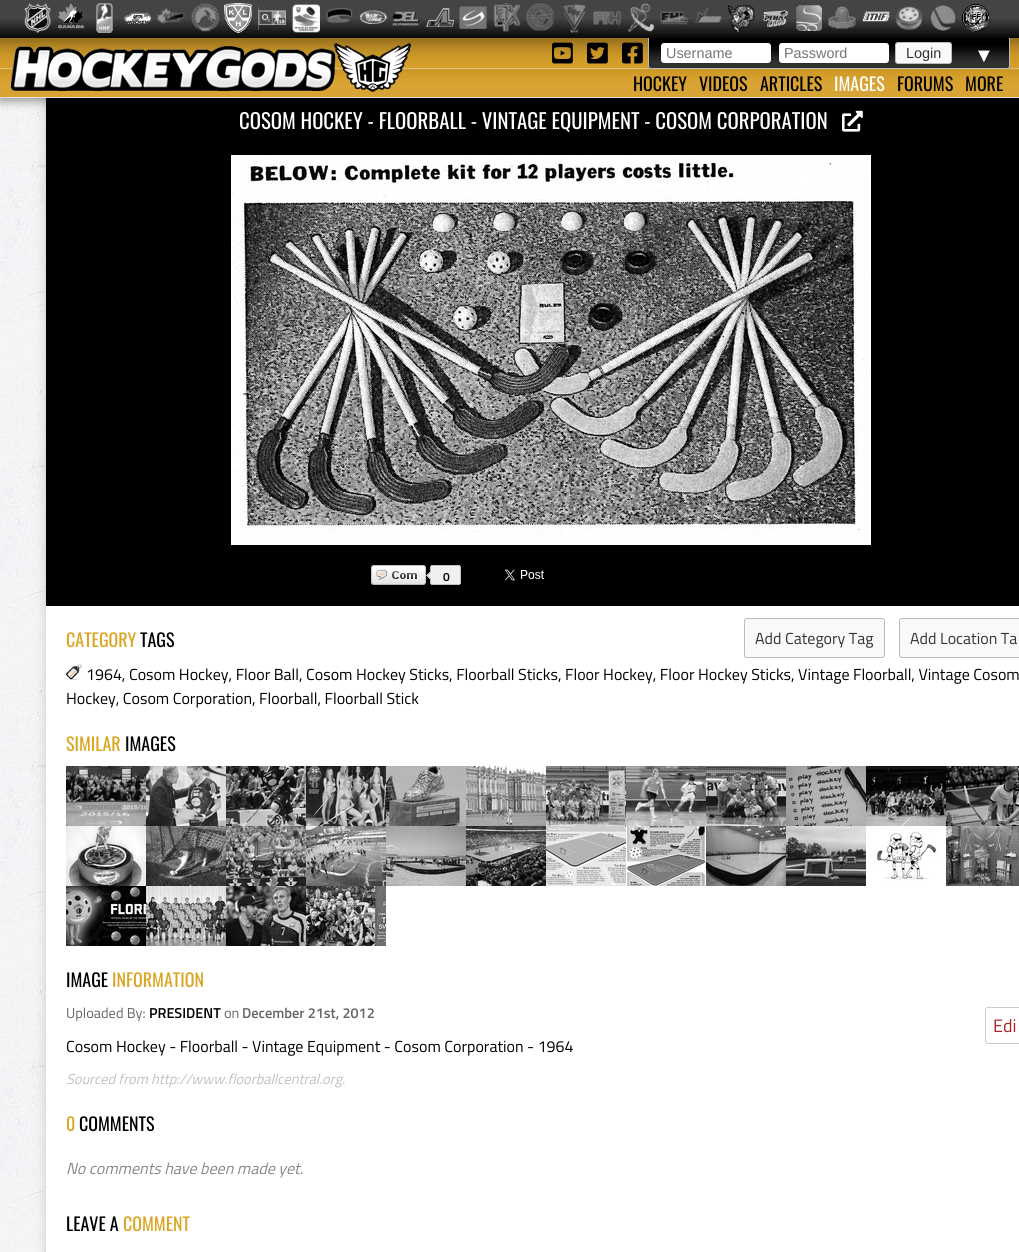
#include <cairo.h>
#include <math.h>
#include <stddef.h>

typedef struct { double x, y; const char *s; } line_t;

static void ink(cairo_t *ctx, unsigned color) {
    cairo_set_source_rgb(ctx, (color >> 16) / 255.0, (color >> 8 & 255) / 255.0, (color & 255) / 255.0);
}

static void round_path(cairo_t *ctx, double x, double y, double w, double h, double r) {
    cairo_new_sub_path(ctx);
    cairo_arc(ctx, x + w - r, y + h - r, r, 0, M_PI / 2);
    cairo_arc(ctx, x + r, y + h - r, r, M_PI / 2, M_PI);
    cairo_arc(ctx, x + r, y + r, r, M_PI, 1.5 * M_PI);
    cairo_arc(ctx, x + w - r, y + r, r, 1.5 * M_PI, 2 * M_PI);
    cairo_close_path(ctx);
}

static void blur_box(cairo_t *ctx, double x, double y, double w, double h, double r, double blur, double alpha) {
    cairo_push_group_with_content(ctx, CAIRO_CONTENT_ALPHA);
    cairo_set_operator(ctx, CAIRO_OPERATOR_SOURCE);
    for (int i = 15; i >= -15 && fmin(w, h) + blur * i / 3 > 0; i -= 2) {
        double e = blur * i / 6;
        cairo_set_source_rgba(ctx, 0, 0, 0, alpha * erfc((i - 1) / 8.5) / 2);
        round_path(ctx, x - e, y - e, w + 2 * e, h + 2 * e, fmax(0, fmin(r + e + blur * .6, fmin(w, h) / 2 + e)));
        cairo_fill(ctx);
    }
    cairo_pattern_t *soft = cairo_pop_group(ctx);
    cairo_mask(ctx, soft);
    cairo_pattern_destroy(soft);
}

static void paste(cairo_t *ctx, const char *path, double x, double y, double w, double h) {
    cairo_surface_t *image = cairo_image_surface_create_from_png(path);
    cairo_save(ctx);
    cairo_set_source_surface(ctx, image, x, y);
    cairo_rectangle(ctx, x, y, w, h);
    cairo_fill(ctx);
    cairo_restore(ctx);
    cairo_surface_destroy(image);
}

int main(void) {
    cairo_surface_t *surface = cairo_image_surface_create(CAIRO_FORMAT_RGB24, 1019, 1252);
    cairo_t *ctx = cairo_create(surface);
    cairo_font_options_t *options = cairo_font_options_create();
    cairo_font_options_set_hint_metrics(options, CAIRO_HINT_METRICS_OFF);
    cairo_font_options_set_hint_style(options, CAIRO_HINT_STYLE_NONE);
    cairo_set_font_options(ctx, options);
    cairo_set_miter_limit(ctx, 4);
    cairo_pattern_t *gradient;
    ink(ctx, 0xFFFFFF);
    cairo_paint(ctx);
    paste(ctx, "media/1.png", 0, 98, 45, 1154);
    gradient = cairo_pattern_create_linear(510, 0, 510, 38);
    cairo_pattern_add_color_stop_rgba(gradient, 0, 0.267, 0.267, 0.267, 1);
    cairo_pattern_add_color_stop_rgba(gradient, 0.5, 0.267, 0.267, 0.267, 1);
    cairo_pattern_add_color_stop_rgba(gradient, 0.51, 0.247, 0.247, 0.247, 1);
    cairo_pattern_add_color_stop_rgba(gradient, 1, 0.039, 0.031, 0.035, 1);
    cairo_set_source(ctx, gradient);
    cairo_pattern_destroy(gradient);
    cairo_rectangle(ctx, 0, 0, 1019, 38);
    cairo_fill(ctx);
    paste(ctx, "media/2.png", 24, 3, 27, 30);
    paste(ctx, "media/3.png", 57, 3, 28, 26);
    paste(ctx, "media/4.png", 96, 3, 17, 30);
    paste(ctx, "media/5.png", 124, 12, 28, 12);
    paste(ctx, "media/6.png", 157, 8, 28, 16);
    paste(ctx, "media/7.png", 191, 3, 28, 29);
    paste(ctx, "media/8.png", 224, 3, 28, 30);
    paste(ctx, "media/9.png", 258, 6, 28, 25);
    paste(ctx, "media/10.png", 292, 4, 28, 29);
    paste(ctx, "media/11.png", 326, 8, 27, 15);
    paste(ctx, "media/12.png", 359, 10, 28, 14);
    paste(ctx, "media/13.png", 392, 11, 28, 15);
    paste(ctx, "media/14.png", 426, 8, 28, 19);
    paste(ctx, "media/15.png", 459, 6, 28, 23);
    paste(ctx, "media/16.png", 493, 3, 28, 29);
    paste(ctx, "media/17.png", 526, 3, 28, 28);
    paste(ctx, "media/18.png", 563, 4, 23, 29);
    paste(ctx, "media/19.png", 593, 11, 28, 14);
    paste(ctx, "media/20.png", 627, 3, 28, 30);
    paste(ctx, "media/21.png", 660, 11, 28, 14);
    paste(ctx, "media/22.png", 694, 7, 28, 16);
    paste(ctx, "media/23.png", 727, 4, 28, 28);
    paste(ctx, "media/24.png", 763, 10, 25, 17);
    paste(ctx, "media/25.png", 796, 5, 26, 26);
    paste(ctx, "media/26.png", 828, 6, 28, 23);
    paste(ctx, "media/27.png", 862, 11, 28, 11);
    paste(ctx, "media/28.png", 895, 6, 27, 24);
    paste(ctx, "media/29.png", 930, 5, 26, 26);
    paste(ctx, "media/30.png", 962, 4, 28, 28);
    ink(ctx, 0x000000);
    blur_box(ctx, 45, 92, 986, 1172, 0, 4, 0.08);
    blur_box(ctx, 47, 102, 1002, 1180, 0, 10, 0.08);
    ink(ctx, 0xFFFFFF);
    cairo_rectangle(ctx, 46, 606, 973, 646);
    cairo_fill(ctx);
    cairo_rectangle(ctx, 45.5, 88.5, 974, 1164);
    ink(ctx, 0xDDDDDD);
    cairo_set_line_width(ctx, 1);
    cairo_stroke(ctx);
    ink(ctx, 0x000000);
    cairo_rectangle(ctx, 46, 98, 973, 508);
    cairo_fill(ctx);
    paste(ctx, "media/37.png", 842, 110, 21, 22);
    ink(ctx, 0x000000);
    blur_box(ctx, 0, 41, 1019, 60, 0, 5, 0.4);
    paste(ctx, "media/31.png", 0, 38, 1019, 60);
    paste(ctx, "media/32.png", 11, 43, 400, 49);
    paste(ctx, "media/33.png", 552, 42, 21, 22);
    paste(ctx, "media/34.png", 587, 42, 21, 22);
    paste(ctx, "media/35.png", 622, 42, 21, 22);
    ink(ctx, 0x000000);
    cairo_new_path(ctx);
    cairo_move_to(ctx, 648, 38);
    cairo_line_to(ctx, 1010, 38);
    cairo_line_to(ctx, 1010, 66);
    cairo_curve_to(ctx, 1010, 67.5, 1008.5, 69, 1007, 69);
    cairo_line_to(ctx, 651, 69);
    cairo_curve_to(ctx, 649.5, 69, 648, 67.5, 648, 66);
    cairo_close_path(ctx);
    cairo_fill(ctx);
    paste(ctx, "media/36.png", 648, 46, 362, 22);
    ink(ctx, 0xBBBBBB);
    cairo_set_fill_rule(ctx, CAIRO_FILL_RULE_EVEN_ODD);
    cairo_new_path(ctx);
    cairo_move_to(ctx, 648, 38);
    cairo_line_to(ctx, 1010, 38);
    cairo_line_to(ctx, 1010, 66);
    cairo_curve_to(ctx, 1010, 68, 1009, 69, 1007, 69);
    cairo_line_to(ctx, 651, 69);
    cairo_curve_to(ctx, 649, 69, 648, 68, 648, 66);
    cairo_close_path(ctx);
    cairo_move_to(ctx, 649, 38);
    cairo_line_to(ctx, 1009, 38);
    cairo_line_to(ctx, 1009, 66);
    cairo_curve_to(ctx, 1009, 67, 1008, 68, 1007, 68);
    cairo_line_to(ctx, 651, 68);
    cairo_curve_to(ctx, 650, 68, 649, 67, 649, 66);
    cairo_close_path(ctx);
    cairo_fill(ctx);
    ink(ctx, 0xFFFFFF);
    round_path(ctx, 661, 43, 110, 20, 3);
    cairo_fill(ctx);
    cairo_select_font_face(ctx, "Liberation Sans", CAIRO_FONT_SLANT_NORMAL, CAIRO_FONT_WEIGHT_NORMAL);
    cairo_set_font_size(ctx, 14.4);
    ink(ctx, 0x757575);
    cairo_move_to(ctx, 666, 58);
    cairo_show_text(ctx, "Username");
    ink(ctx, 0xFFFFFF);
    round_path(ctx, 779, 43, 110, 20, 3);
    cairo_fill(ctx);
    ink(ctx, 0x757575);
    cairo_move_to(ctx, 784, 58);
    cairo_show_text(ctx, "Password");
    ink(ctx, 0xF9F9F9);
    round_path(ctx, 895.5, 42.5, 56, 21, 2.5);
    cairo_fill_preserve(ctx);
    ink(ctx, 0xBBBBBB);
    cairo_stroke(ctx);
    ink(ctx, 0x333333);
    cairo_move_to(ctx, 906, 58);
    cairo_show_text(ctx, "Login");
    cairo_select_font_face(ctx, "Liberation Serif", CAIRO_FONT_SLANT_NORMAL, CAIRO_FONT_WEIGHT_NORMAL);
    cairo_set_font_size(ctx, 20);
    ink(ctx, 0xFFFFFF);
    cairo_move_to(ctx, 974, 62);
    cairo_show_text(ctx, "▼");
    cairo_select_font_face(ctx, "Oswald", CAIRO_FONT_SLANT_NORMAL, CAIRO_FONT_WEIGHT_NORMAL);
    cairo_set_font_size(ctx, 18);
    ink(ctx, 0x000000);
    {
        static const line_t items[] = {
            {633, 91, "HOCKEY"},
            {699, 91, "VIDEOS"},
            {760, 91, "ARTICLES"},
        };
        for (size_t i = 0; i < sizeof items / sizeof *items; i++) {
            cairo_move_to(ctx, items[i].x, items[i].y);
            cairo_show_text(ctx, items[i].s);
        }
    }
    ink(ctx, 0xFFFFFF);
    cairo_move_to(ctx, 834, 91);
    cairo_show_text(ctx, "IMAGES");
    ink(ctx, 0x000000);
    cairo_move_to(ctx, 897, 91);
    cairo_show_text(ctx, "FORUMS");
    cairo_move_to(ctx, 965, 91);
    cairo_show_text(ctx, "MORE");
    cairo_set_font_size(ctx, 20.8);
    ink(ctx, 0xFFFFFF);
    cairo_move_to(ctx, 239, 129);
    cairo_show_text(ctx, "COSOM HOCKEY - FLOORBALL - VINTAGE EQUIPMENT - COSOM CORPORATION");
    paste(ctx, "media/38.png", 231, 155, 640, 390);
    paste(ctx, "media/39.png", 371, 565, 55, 20);
    paste(ctx, "media/40.png", 426, 565, 35, 20);
    cairo_select_font_face(ctx, "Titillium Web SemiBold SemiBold", CAIRO_FONT_SLANT_NORMAL, CAIRO_FONT_WEIGHT_NORMAL);
    cairo_set_font_size(ctx, 12);
    ink(ctx, 0x000000);
    cairo_move_to(ctx, 443, 581);
    cairo_show_text(ctx, "0");
    paste(ctx, "media/41.png", 504, 569, 40, 12);
    cairo_select_font_face(ctx, "Oswald", CAIRO_FONT_SLANT_NORMAL, CAIRO_FONT_WEIGHT_NORMAL);
    cairo_set_font_size(ctx, 18);
    ink(ctx, 0xDAA520);
    cairo_move_to(ctx, 66, 647);
    cairo_show_text(ctx, "CATEGORY");
    ink(ctx, 0x000000);
    cairo_move_to(ctx, 140, 647);
    cairo_show_text(ctx, "TAGS");
    ink(ctx, 0xF9F9F9);
    round_path(ctx, 744.5, 618.5, 140, 39, 2.5);
    cairo_fill_preserve(ctx);
    ink(ctx, 0xBBBBBB);
    cairo_stroke(ctx);
    cairo_select_font_face(ctx, "Titillium Web", CAIRO_FONT_SLANT_NORMAL, CAIRO_FONT_WEIGHT_NORMAL);
    cairo_set_font_size(ctx, 16);
    ink(ctx, 0x333333);
    cairo_move_to(ctx, 755, 644);
    cairo_show_text(ctx, "Add Category Tag");
    ink(ctx, 0xF9F9F9);
    round_path(ctx, 899.5, 618.5, 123, 39, 2.5);
    cairo_fill_preserve(ctx);
    ink(ctx, 0xBBBBBB);
    cairo_stroke(ctx);
    ink(ctx, 0x333333);
    cairo_move_to(ctx, 910, 644);
    cairo_show_text(ctx, "Add Location Ta");
    paste(ctx, "media/42.png", 66, 664, 16, 16);
    ink(ctx, 0x000000);
    cairo_move_to(ctx, 86, 680);
    cairo_show_text(ctx, "1964, Cosom Hockey, Floor Ball, Cosom Hockey Sticks, Floorball Sticks, Floor Hockey, Floor Hockey Sticks, Vintage Floorball, Vintage Cosom");
    cairo_move_to(ctx, 66, 704);
    cairo_show_text(ctx, "Hockey, Cosom Corporation, Floorball, Floorball Stick");
    cairo_select_font_face(ctx, "Oswald", CAIRO_FONT_SLANT_NORMAL, CAIRO_FONT_WEIGHT_NORMAL);
    cairo_set_font_size(ctx, 18);
    ink(ctx, 0xDAA520);
    cairo_move_to(ctx, 66, 751);
    cairo_show_text(ctx, "SIMILAR");
    ink(ctx, 0x000000);
    cairo_move_to(ctx, 125, 751);
    cairo_show_text(ctx, "IMAGES");
    paste(ctx, "media/43.png", 66, 766, 80, 60);
    paste(ctx, "media/44.png", 146, 766, 80, 60);
    paste(ctx, "media/45.png", 226, 766, 80, 60);
    paste(ctx, "media/46.png", 306, 766, 80, 60);
    paste(ctx, "media/47.png", 386, 766, 80, 60);
    paste(ctx, "media/48.png", 466, 766, 80, 60);
    paste(ctx, "media/49.png", 546, 766, 80, 60);
    paste(ctx, "media/50.png", 626, 766, 80, 60);
    paste(ctx, "media/51.png", 706, 766, 80, 60);
    paste(ctx, "media/52.png", 786, 766, 80, 60);
    paste(ctx, "media/53.png", 866, 766, 80, 60);
    paste(ctx, "media/54.png", 946, 766, 73, 60);
    paste(ctx, "media/55.png", 66, 826, 80, 60);
    paste(ctx, "media/56.png", 146, 826, 80, 60);
    paste(ctx, "media/57.png", 226, 826, 80, 60);
    paste(ctx, "media/58.png", 306, 826, 80, 60);
    paste(ctx, "media/59.png", 386, 826, 80, 60);
    paste(ctx, "media/60.png", 466, 826, 80, 60);
    paste(ctx, "media/61.png", 546, 826, 80, 60);
    paste(ctx, "media/62.png", 626, 826, 80, 60);
    paste(ctx, "media/63.png", 706, 826, 80, 60);
    paste(ctx, "media/64.png", 786, 826, 80, 60);
    paste(ctx, "media/65.png", 874, 828, 64, 53);
    paste(ctx, "media/66.png", 946, 826, 73, 60);
    paste(ctx, "media/67.png", 66, 886, 80, 60);
    paste(ctx, "media/68.png", 146, 886, 80, 60);
    paste(ctx, "media/69.png", 226, 886, 80, 60);
    paste(ctx, "media/70.png", 306, 886, 80, 60);
    cairo_move_to(ctx, 66, 987);
    cairo_show_text(ctx, "IMAGE");
    ink(ctx, 0xDAA520);
    cairo_move_to(ctx, 112, 987);
    cairo_show_text(ctx, "INFORMATION");
    cairo_select_font_face(ctx, "Titillium Web", CAIRO_FONT_SLANT_NORMAL, CAIRO_FONT_WEIGHT_NORMAL);
    cairo_set_font_size(ctx, 14.4);
    ink(ctx, 0x666666);
    cairo_move_to(ctx, 66, 1018);
    cairo_show_text(ctx, "Uploaded By:");
    cairo_select_font_face(ctx, "Titillium Web SemiBold SemiBold", CAIRO_FONT_SLANT_NORMAL, CAIRO_FONT_WEIGHT_NORMAL);
    ink(ctx, 0x000000);
    cairo_move_to(ctx, 149, 1018);
    cairo_show_text(ctx, "PRESIDENT");
    cairo_select_font_face(ctx, "Titillium Web", CAIRO_FONT_SLANT_NORMAL, CAIRO_FONT_WEIGHT_NORMAL);
    ink(ctx, 0x666666);
    cairo_move_to(ctx, 224, 1018);
    cairo_show_text(ctx, "on");
    cairo_select_font_face(ctx, "Titillium Web SemiBold SemiBold", CAIRO_FONT_SLANT_NORMAL, CAIRO_FONT_WEIGHT_NORMAL);
    cairo_move_to(ctx, 242, 1018);
    cairo_show_text(ctx, "December 21st, 2012");
    round_path(ctx, 985.5, 1007.5, 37, 36, 2.5);
    ink(ctx, 0xCCCCCC);
    cairo_stroke(ctx);
    cairo_select_font_face(ctx, "Titillium Web", CAIRO_FONT_SLANT_NORMAL, CAIRO_FONT_WEIGHT_NORMAL);
    cairo_set_font_size(ctx, 18);
    ink(ctx, 0xB22222);
    cairo_move_to(ctx, 993, 1032);
    cairo_show_text(ctx, "Edi");
    cairo_set_font_size(ctx, 16);
    ink(ctx, 0x000000);
    cairo_move_to(ctx, 66, 1052);
    cairo_show_text(ctx, "Cosom Hockey - Floorball - Vintage Equipment - Cosom Corporation - 1964");
    cairo_select_font_face(ctx, "Titillium Web", CAIRO_FONT_SLANT_ITALIC, CAIRO_FONT_WEIGHT_NORMAL);
    cairo_set_font_size(ctx, 14.4);
    ink(ctx, 0xC0C0C0);
    cairo_move_to(ctx, 66, 1084);
    cairo_show_text(ctx, "Sourced from http://www.floorballcentral.org.");
    cairo_select_font_face(ctx, "Oswald", CAIRO_FONT_SLANT_NORMAL, CAIRO_FONT_WEIGHT_NORMAL);
    cairo_set_font_size(ctx, 18);
    ink(ctx, 0xDAA520);
    cairo_move_to(ctx, 66, 1131);
    cairo_show_text(ctx, "0");
    ink(ctx, 0x000000);
    cairo_move_to(ctx, 79, 1131);
    cairo_show_text(ctx, "COMMENTS");
    cairo_select_font_face(ctx, "Titillium Web", CAIRO_FONT_SLANT_ITALIC, CAIRO_FONT_WEIGHT_NORMAL);
    cairo_set_font_size(ctx, 16);
    ink(ctx, 0x888888);
    cairo_move_to(ctx, 66, 1174);
    cairo_show_text(ctx, "No comments have been made yet.");
    cairo_select_font_face(ctx, "Oswald", CAIRO_FONT_SLANT_NORMAL, CAIRO_FONT_WEIGHT_NORMAL);
    cairo_set_font_size(ctx, 18);
    ink(ctx, 0x000000);
    cairo_move_to(ctx, 66, 1231);
    cairo_show_text(ctx, "LEAVE A");
    ink(ctx, 0xDAA520);
    cairo_move_to(ctx, 123, 1231);
    cairo_show_text(ctx, "COMMENT");
    cairo_surface_write_to_png(surface, "image.png");
    cairo_font_options_destroy(options);
    cairo_destroy(ctx);
    cairo_surface_destroy(surface);
    return 0;
}
